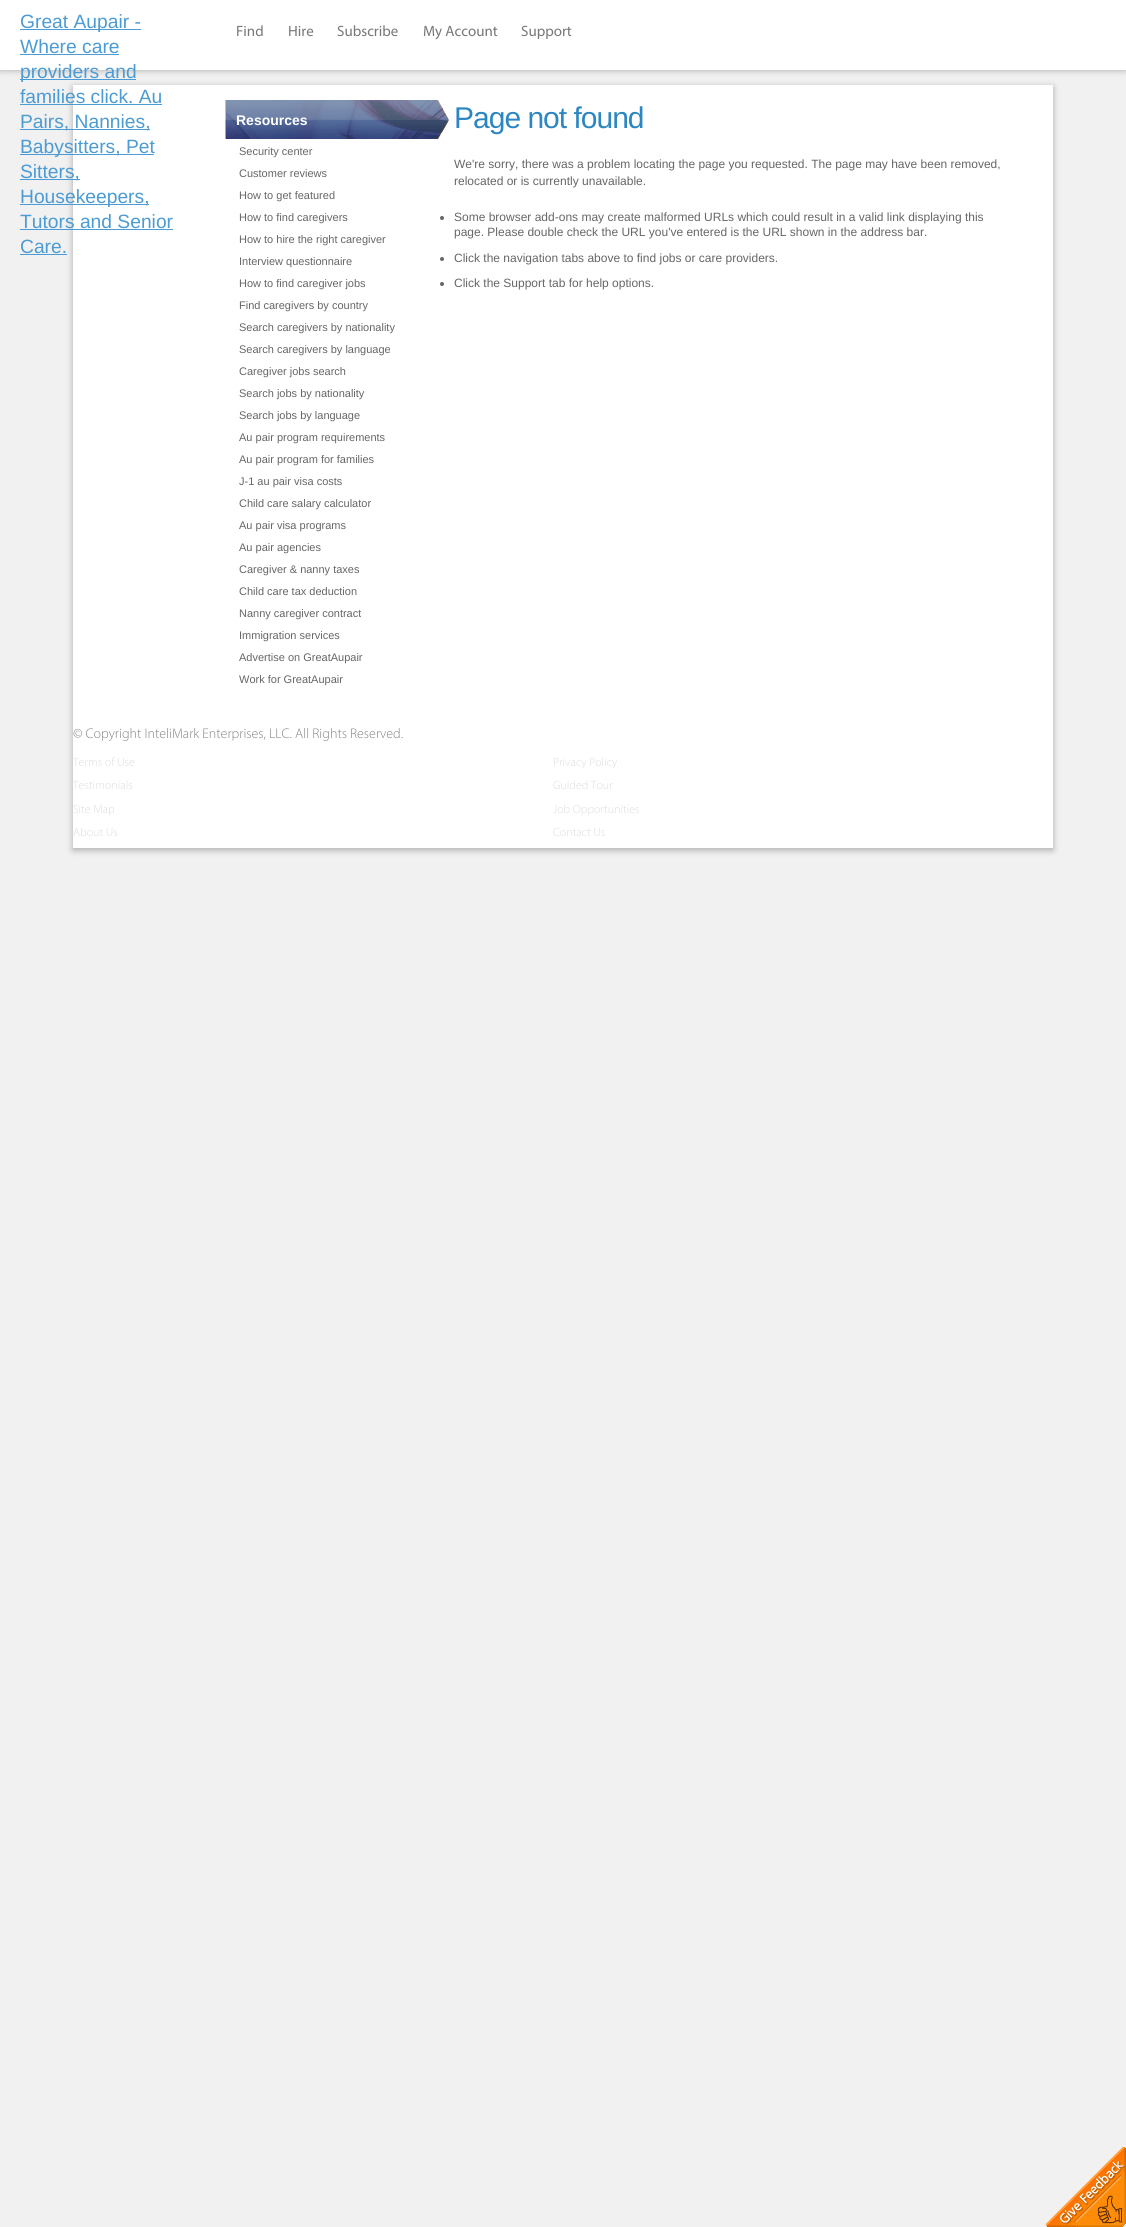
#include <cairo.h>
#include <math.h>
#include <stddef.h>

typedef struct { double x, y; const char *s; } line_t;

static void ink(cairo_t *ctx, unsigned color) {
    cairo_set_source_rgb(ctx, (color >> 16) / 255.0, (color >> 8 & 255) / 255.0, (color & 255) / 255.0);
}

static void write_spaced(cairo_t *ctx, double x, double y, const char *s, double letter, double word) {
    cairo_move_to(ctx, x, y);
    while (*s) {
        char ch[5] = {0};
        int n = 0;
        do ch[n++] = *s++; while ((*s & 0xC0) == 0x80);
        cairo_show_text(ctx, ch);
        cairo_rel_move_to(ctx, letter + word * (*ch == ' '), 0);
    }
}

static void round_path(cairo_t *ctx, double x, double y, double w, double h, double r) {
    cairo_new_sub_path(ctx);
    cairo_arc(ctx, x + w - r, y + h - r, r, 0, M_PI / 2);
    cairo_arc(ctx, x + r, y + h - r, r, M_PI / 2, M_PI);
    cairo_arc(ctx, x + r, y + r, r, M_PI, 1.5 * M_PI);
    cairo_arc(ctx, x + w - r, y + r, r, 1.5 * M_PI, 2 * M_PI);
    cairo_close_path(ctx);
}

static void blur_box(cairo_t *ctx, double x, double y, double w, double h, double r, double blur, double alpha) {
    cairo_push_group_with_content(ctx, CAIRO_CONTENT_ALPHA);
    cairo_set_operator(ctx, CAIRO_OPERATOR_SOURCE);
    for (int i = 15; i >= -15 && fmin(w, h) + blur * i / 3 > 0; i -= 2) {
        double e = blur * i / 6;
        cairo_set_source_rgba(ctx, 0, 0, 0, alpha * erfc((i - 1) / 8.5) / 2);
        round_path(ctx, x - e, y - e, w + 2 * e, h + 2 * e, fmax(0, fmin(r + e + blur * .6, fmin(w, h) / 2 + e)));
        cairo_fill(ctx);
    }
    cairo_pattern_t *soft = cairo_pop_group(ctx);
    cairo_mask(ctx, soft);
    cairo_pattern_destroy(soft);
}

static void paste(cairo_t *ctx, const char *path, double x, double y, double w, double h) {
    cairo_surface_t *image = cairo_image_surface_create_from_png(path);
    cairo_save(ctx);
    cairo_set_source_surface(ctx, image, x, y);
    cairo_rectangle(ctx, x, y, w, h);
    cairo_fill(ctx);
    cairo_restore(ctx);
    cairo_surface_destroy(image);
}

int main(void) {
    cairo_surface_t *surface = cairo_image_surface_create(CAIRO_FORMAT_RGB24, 1126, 2227);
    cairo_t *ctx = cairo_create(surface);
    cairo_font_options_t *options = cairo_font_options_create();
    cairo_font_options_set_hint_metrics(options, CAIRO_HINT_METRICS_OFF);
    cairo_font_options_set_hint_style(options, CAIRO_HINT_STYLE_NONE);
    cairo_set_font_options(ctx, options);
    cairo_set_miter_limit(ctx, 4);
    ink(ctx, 0xF1F1F1);
    cairo_paint(ctx);
    ink(ctx, 0x000000);
    blur_box(ctx, 0, 0, 1126, 70, 0, 3.5, 0.3);
    ink(ctx, 0xFFFFFF);
    cairo_rectangle(ctx, 0, 0, 1126, 70);
    cairo_fill(ctx);
    ink(ctx, 0x4C9BD4);
    cairo_rectangle(ctx, 20, 29, 121, 1);
    cairo_fill(ctx);
    cairo_select_font_face(ctx, "Liberation Sans", CAIRO_FONT_SLANT_NORMAL, CAIRO_FONT_WEIGHT_NORMAL);
    cairo_set_font_size(ctx, 19.25);
    cairo_move_to(ctx, 20, 28);
    cairo_show_text(ctx, "Great Aupair -");
    cairo_move_to(ctx, 20, 53);
    cairo_show_text(ctx, "Where care");
    cairo_rectangle(ctx, 20, 54, 99, 1);
    cairo_fill(ctx);
    ink(ctx, 0x000000);
    blur_box(ctx, 73, 87, 980, 763, 0, 3.5, 0.3);
    ink(ctx, 0x4C9BD4);
    cairo_rectangle(ctx, 20, 79, 116, 1);
    cairo_fill(ctx);
    cairo_move_to(ctx, 20, 78);
    cairo_show_text(ctx, "providers and");
    ink(ctx, 0xFFFFFF);
    cairo_rectangle(ctx, 73, 85, 980, 763);
    cairo_fill(ctx);
    ink(ctx, 0x4C9BD4);
    cairo_move_to(ctx, 20, 103);
    cairo_show_text(ctx, "families click. Au");
    cairo_rectangle(ctx, 20, 104, 142, 1);
    cairo_fill(ctx);
    cairo_rectangle(ctx, 20, 129, 130, 1);
    cairo_fill(ctx);
    cairo_move_to(ctx, 20, 128);
    cairo_show_text(ctx, "Pairs, Nannies,");
    cairo_rectangle(ctx, 20, 154, 134, 1);
    cairo_fill(ctx);
    cairo_move_to(ctx, 20, 153);
    cairo_show_text(ctx, "Babysitters, Pet");
    cairo_rectangle(ctx, 20, 179, 60, 1);
    cairo_fill(ctx);
    cairo_move_to(ctx, 20, 178);
    cairo_show_text(ctx, "Sitters,");
    cairo_rectangle(ctx, 20, 204, 129, 1);
    cairo_fill(ctx);
    cairo_move_to(ctx, 20, 203);
    cairo_show_text(ctx, "Housekeepers,");
    cairo_move_to(ctx, 20, 228);
    cairo_show_text(ctx, "Tutors and Senior");
    cairo_rectangle(ctx, 20, 229, 153, 1);
    cairo_fill(ctx);
    cairo_move_to(ctx, 20, 253);
    cairo_show_text(ctx, "Care.");
    cairo_rectangle(ctx, 20, 254, 47, 1);
    cairo_fill(ctx);
    cairo_select_font_face(ctx, "Myriad", CAIRO_FONT_SLANT_NORMAL, CAIRO_FONT_WEIGHT_NORMAL);
    cairo_set_font_size(ctx, 15);
    ink(ctx, 0x777777);
    {
        static const line_t items[] = {
            {236, 36, "Find"},
            {288, 36, "Hire"},
            {337, 36, "Subscribe"},
            {423, 36, "My Account"},
            {521, 36, "Support"},
        };
        for (size_t i = 0; i < sizeof items / sizeof *items; i++) {
            cairo_move_to(ctx, items[i].x, items[i].y);
            cairo_show_text(ctx, items[i].s);
        }
    }
    paste(ctx, "media/1.png", 225, 100, 224, 39);
    cairo_select_font_face(ctx, "Liberation Sans", CAIRO_FONT_SLANT_NORMAL, CAIRO_FONT_WEIGHT_BOLD);
    cairo_set_font_size(ctx, 14);
    ink(ctx, 0xFFFFFF);
    cairo_move_to(ctx, 236, 125);
    cairo_show_text(ctx, "Resources");
    cairo_select_font_face(ctx, "Liberation Sans", CAIRO_FONT_SLANT_NORMAL, CAIRO_FONT_WEIGHT_NORMAL);
    cairo_set_font_size(ctx, 11);
    ink(ctx, 0x666666);
    {
        static const line_t items[] = {
            {239, 155, "Security center"},
            {239, 177, "Customer reviews"},
            {239, 199, "How to get featured"},
            {239, 221, "How to find caregivers"},
            {239, 243, "How to hire the right caregiver"},
            {239, 265, "Interview questionnaire"},
            {239, 287, "How to find caregiver jobs"},
            {239, 309, "Find caregivers by country"},
            {239, 331, "Search caregivers by nationality"},
            {239, 353, "Search caregivers by language"},
            {239, 375, "Caregiver jobs search"},
            {239, 397, "Search jobs by nationality"},
            {239, 419, "Search jobs by language"},
            {239, 441, "Au pair program requirements"},
            {239, 463, "Au pair program for families"},
            {239, 485, "J-1 au pair visa costs"},
            {239, 507, "Child care salary calculator"},
            {239, 529, "Au pair visa programs"},
            {239, 551, "Au pair agencies"},
            {239, 573, "Caregiver & nanny taxes"},
            {239, 595, "Child care tax deduction"},
            {239, 617, "Nanny caregiver contract"},
            {239, 639, "Immigration services"},
            {239, 661, "Advertise on GreatAupair"},
            {239, 683, "Work for GreatAupair"},
        };
        for (size_t i = 0; i < sizeof items / sizeof *items; i++) {
            cairo_move_to(ctx, items[i].x, items[i].y);
            cairo_show_text(ctx, items[i].s);
        }
    }
    cairo_set_font_size(ctx, 30);
    ink(ctx, 0x2B86C1);
    write_spaced(ctx, 454, 128, "Page not found", -1, 0);
    cairo_set_font_size(ctx, 12);
    ink(ctx, 0x666666);
    cairo_move_to(ctx, 454, 168);
    cairo_show_text(ctx, "We're sorry, there was a problem locating the page you requested. The page may have been removed,");
    cairo_move_to(ctx, 454, 185);
    cairo_show_text(ctx, "relocated or is currently unavailable.");
    cairo_new_path(ctx);
    cairo_arc(ctx, 442, 218, 2, 0, 2 * M_PI);
    cairo_fill(ctx);
    cairo_move_to(ctx, 454, 221);
    cairo_show_text(ctx, "Some browser add-ons may create malformed URLs which could result in a valid link displaying this");
    cairo_move_to(ctx, 454, 236);
    cairo_show_text(ctx, "page. Please double check the URL you've entered is the URL shown in the address bar.");
    cairo_new_path(ctx);
    cairo_arc(ctx, 442, 259, 2, 0, 2 * M_PI);
    cairo_fill(ctx);
    cairo_move_to(ctx, 454, 262);
    cairo_show_text(ctx, "Click the navigation tabs above to find jobs or care providers.");
    cairo_new_path(ctx);
    cairo_arc(ctx, 442, 284, 2, 0, 2 * M_PI);
    cairo_fill(ctx);
    cairo_move_to(ctx, 454, 287);
    cairo_show_text(ctx, "Click the Support tab for help options.");
    cairo_select_font_face(ctx, "Myriad Light", CAIRO_FONT_SLANT_NORMAL, CAIRO_FONT_WEIGHT_NORMAL);
    cairo_set_font_size(ctx, 14);
    ink(ctx, 0x848484);
    cairo_move_to(ctx, 73, 738);
    cairo_show_text(ctx, "© Copyright InteliMark Enterprises, LLC. All Rights Reserved.");
    cairo_set_font_size(ctx, 12);
    ink(ctx, 0xDDDDDD);
    {
        static const line_t items[] = {
            {73, 766, "Terms of Use"},
            {553, 766, "Privacy Policy"},
            {73, 789, "Testimonials"},
            {553, 789, "Guided Tour"},
            {73, 813, "Site Map"},
            {553, 813, "Job Opportunities"},
            {73, 836, "About Us"},
            {553, 836, "Contact Us"},
        };
        for (size_t i = 0; i < sizeof items / sizeof *items; i++) {
            cairo_move_to(ctx, items[i].x, items[i].y);
            cairo_show_text(ctx, items[i].s);
        }
    }
    paste(ctx, "media/2.png", 1046, 2147, 80, 80);
    cairo_surface_write_to_png(surface, "image.png");
    cairo_font_options_destroy(options);
    cairo_destroy(ctx);
    cairo_surface_destroy(surface);
    return 0;
}
